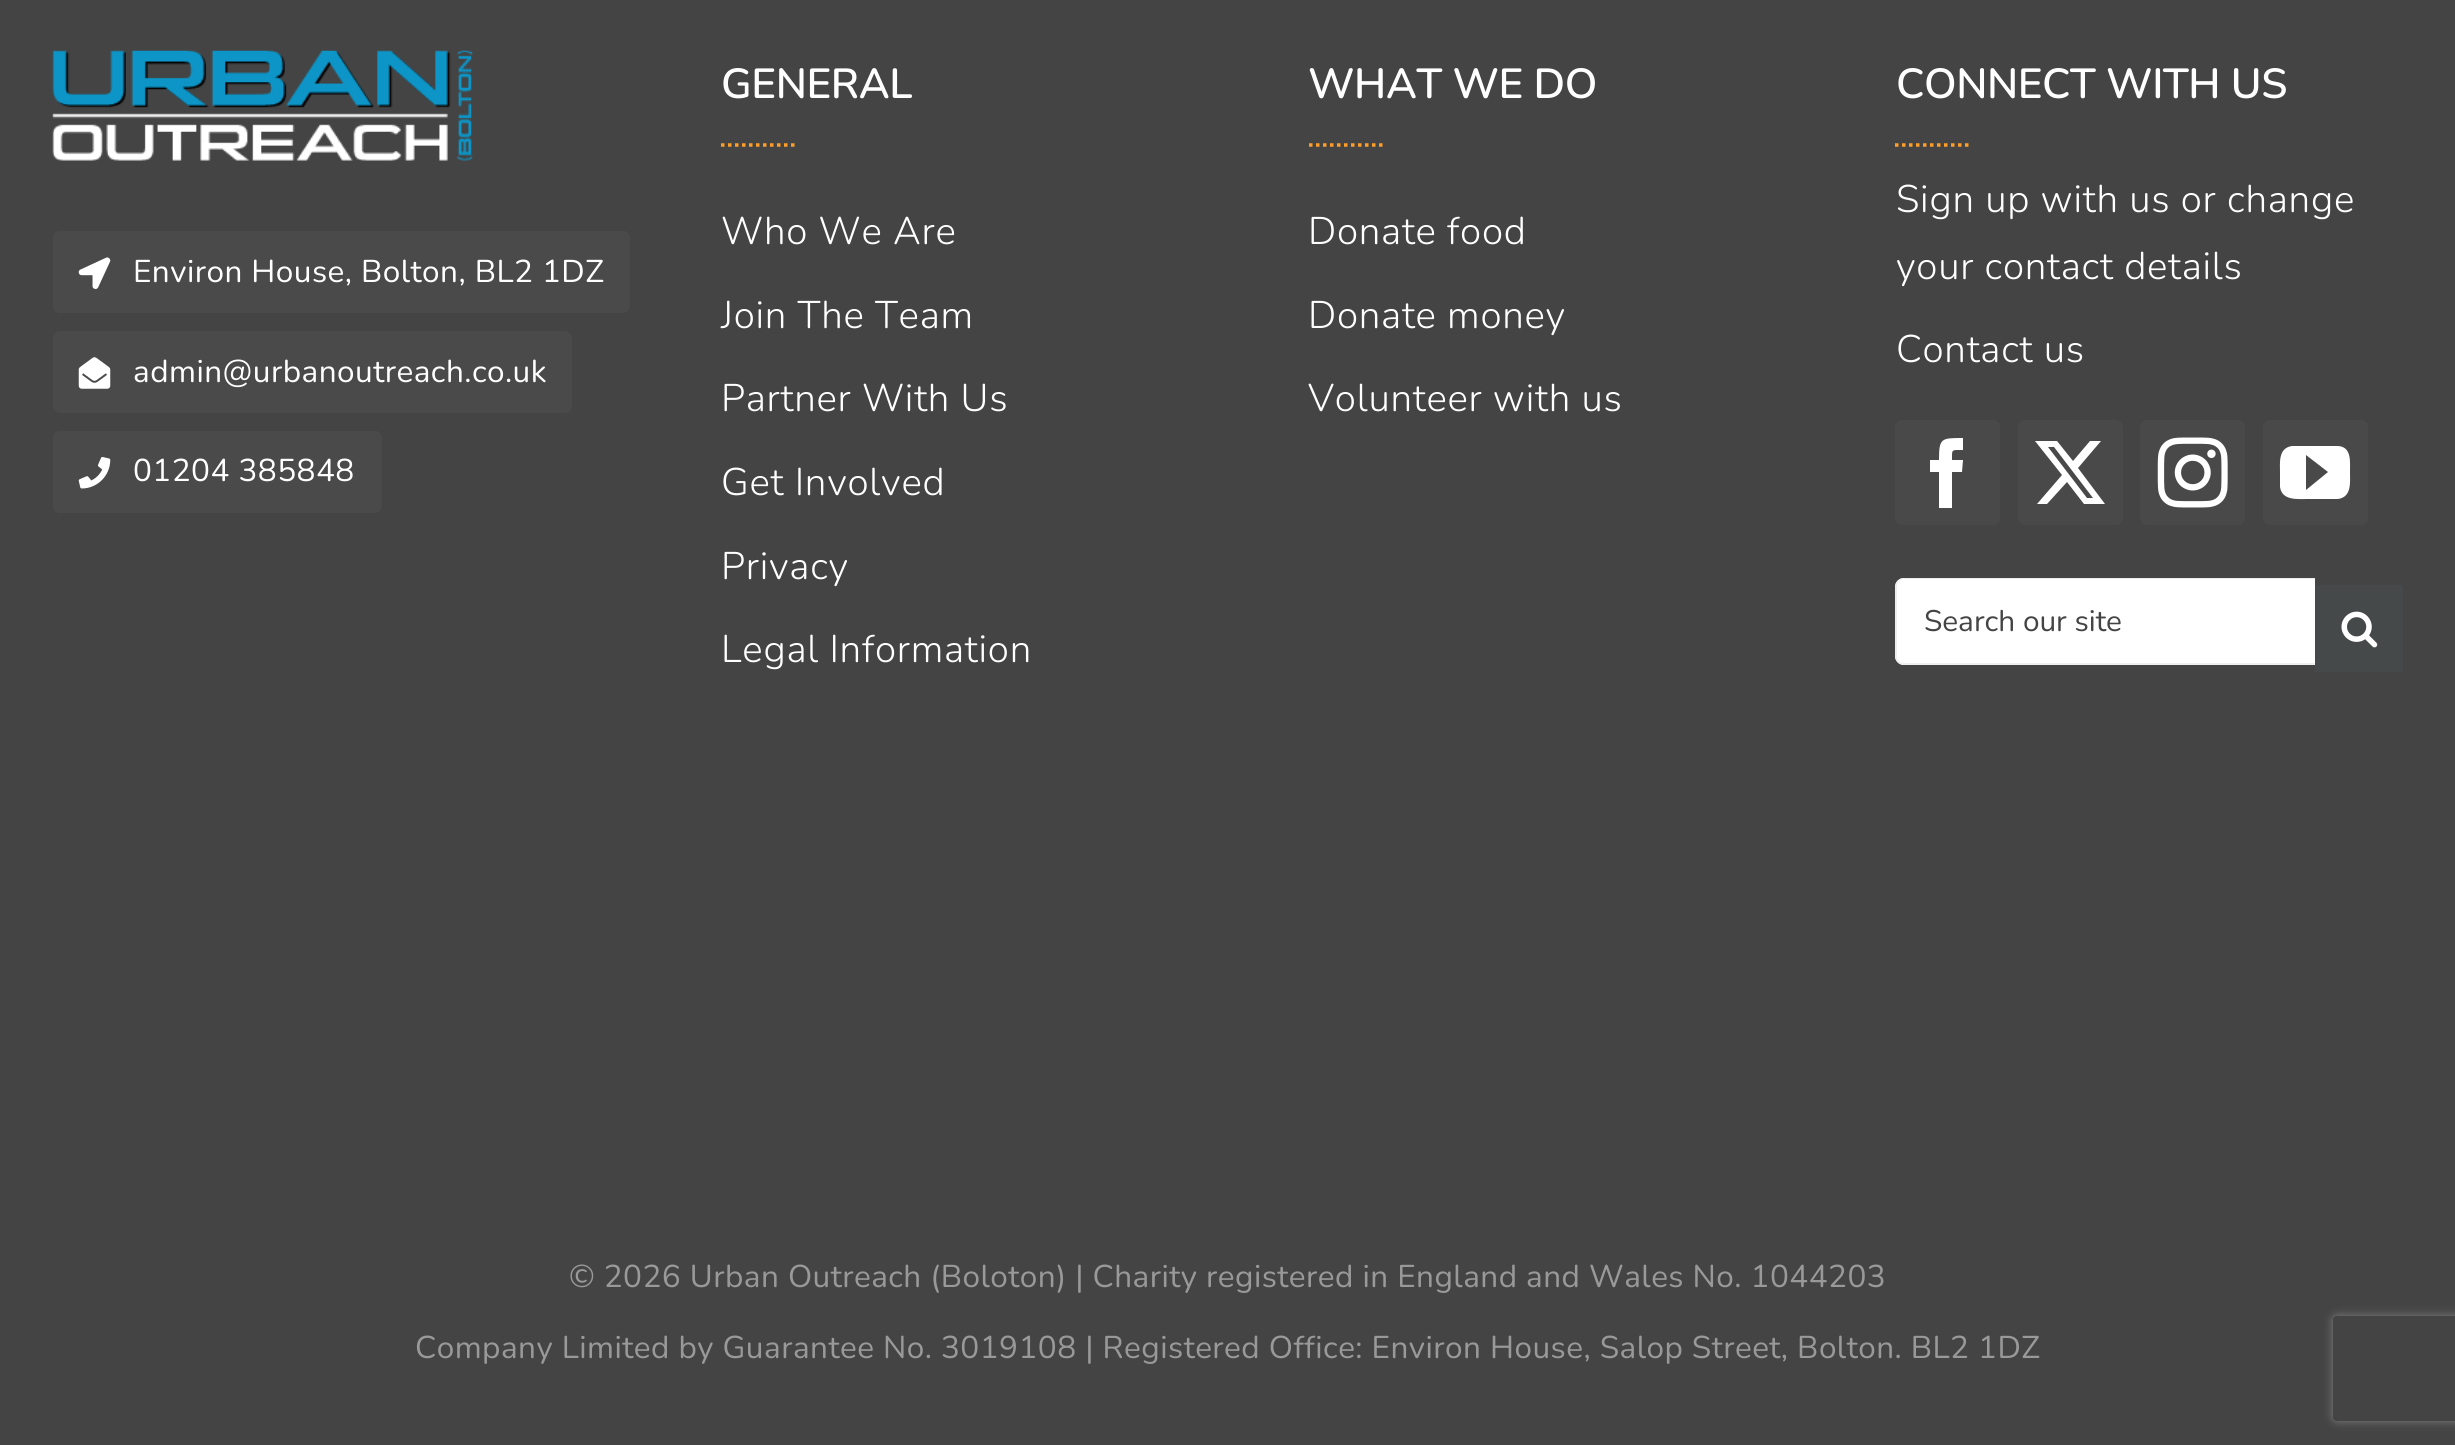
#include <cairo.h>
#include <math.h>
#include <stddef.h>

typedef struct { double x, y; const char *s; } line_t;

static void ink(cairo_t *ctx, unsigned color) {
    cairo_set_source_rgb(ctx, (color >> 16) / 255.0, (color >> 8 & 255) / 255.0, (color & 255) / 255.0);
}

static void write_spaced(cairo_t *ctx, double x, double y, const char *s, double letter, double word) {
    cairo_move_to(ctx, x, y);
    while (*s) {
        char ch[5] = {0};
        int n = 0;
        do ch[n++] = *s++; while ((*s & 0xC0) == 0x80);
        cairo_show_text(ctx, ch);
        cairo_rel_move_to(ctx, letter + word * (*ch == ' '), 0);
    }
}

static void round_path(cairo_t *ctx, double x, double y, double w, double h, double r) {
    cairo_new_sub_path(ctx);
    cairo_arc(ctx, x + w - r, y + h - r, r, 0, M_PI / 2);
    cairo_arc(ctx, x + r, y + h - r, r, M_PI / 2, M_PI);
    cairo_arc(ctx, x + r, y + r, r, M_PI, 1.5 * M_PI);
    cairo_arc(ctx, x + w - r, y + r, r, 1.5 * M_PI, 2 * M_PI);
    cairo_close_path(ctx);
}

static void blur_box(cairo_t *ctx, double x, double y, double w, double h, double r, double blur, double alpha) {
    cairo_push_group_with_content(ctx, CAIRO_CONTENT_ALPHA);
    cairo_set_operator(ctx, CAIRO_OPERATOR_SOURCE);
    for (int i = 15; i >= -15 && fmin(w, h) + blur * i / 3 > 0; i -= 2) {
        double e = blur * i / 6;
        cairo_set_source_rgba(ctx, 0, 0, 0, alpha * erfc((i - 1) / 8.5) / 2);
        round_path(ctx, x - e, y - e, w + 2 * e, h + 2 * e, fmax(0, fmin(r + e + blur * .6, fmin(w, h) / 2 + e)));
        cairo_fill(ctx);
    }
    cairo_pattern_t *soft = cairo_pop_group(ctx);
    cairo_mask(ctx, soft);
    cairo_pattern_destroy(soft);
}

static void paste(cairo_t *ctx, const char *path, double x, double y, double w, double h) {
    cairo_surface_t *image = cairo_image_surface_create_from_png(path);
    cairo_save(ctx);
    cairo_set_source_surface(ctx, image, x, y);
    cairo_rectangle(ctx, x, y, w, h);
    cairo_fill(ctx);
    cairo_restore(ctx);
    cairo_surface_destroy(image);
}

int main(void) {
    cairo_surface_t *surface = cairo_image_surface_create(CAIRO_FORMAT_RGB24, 2455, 1445);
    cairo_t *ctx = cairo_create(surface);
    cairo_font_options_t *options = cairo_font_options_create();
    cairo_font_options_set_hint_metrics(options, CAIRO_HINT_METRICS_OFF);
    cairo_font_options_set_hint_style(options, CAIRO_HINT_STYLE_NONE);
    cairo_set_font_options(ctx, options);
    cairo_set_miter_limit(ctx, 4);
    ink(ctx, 0x444444);
    cairo_paint(ctx);
    paste(ctx, "media/1.png", 52, 50, 421, 111);
    ink(ctx, 0x4A4A4A);
    round_path(ctx, 53, 231, 577, 82, 7);
    cairo_fill(ctx);
    paste(ctx, "media/2.png", 78, 257, 33, 32);
    cairo_select_font_face(ctx, "Nunito", CAIRO_FONT_SLANT_NORMAL, CAIRO_FONT_WEIGHT_NORMAL);
    cairo_set_font_size(ctx, 31.5);
    ink(ctx, 0xFFFFFF);
    write_spaced(ctx, 133, 282, "Environ House, Bolton, BL2 1DZ", 0.47, 0);
    ink(ctx, 0x4A4A4A);
    round_path(ctx, 53, 331, 519, 82, 7);
    cairo_fill(ctx);
    paste(ctx, "media/3.png", 78, 357, 33, 32);
    ink(ctx, 0xFFFFFF);
    write_spaced(ctx, 133, 382, "admin@urbanoutreach.co.uk", 0.47, 0);
    ink(ctx, 0x4A4A4A);
    round_path(ctx, 53, 431, 329, 82, 7);
    cairo_fill(ctx);
    paste(ctx, "media/4.png", 78, 457, 33, 32);
    ink(ctx, 0xFFFFFF);
    write_spaced(ctx, 133, 481, "01204 385848", 0.47, 0);
    cairo_select_font_face(ctx, "Nunito SemiBold", CAIRO_FONT_SLANT_NORMAL, CAIRO_FONT_WEIGHT_NORMAL);
    cairo_set_font_size(ctx, 42);
    write_spaced(ctx, 721, 98, "GENERAL", -0.4, 0);
    cairo_new_path(ctx);
    cairo_move_to(ctx, 721, 145);
    cairo_line_to(ctx, 794.5, 145);
    ink(ctx, 0xFD9D2A);
    cairo_set_line_width(ctx, 3.5);
    cairo_set_dash(ctx, (double[]){3.5, 3.5}, 2, 0);
    cairo_stroke(ctx);
    cairo_select_font_face(ctx, "Nunito Light", CAIRO_FONT_SLANT_NORMAL, CAIRO_FONT_WEIGHT_NORMAL);
    cairo_set_font_size(ctx, 38.5);
    ink(ctx, 0xFFFFFF);
    {
        static const line_t items[] = {
            {721, 244, "Who We Are"},
            {721, 328, "Join The Team"},
            {721, 411, "Partner With Us"},
            {721, 495, "Get Involved"},
            {721, 579, "Privacy"},
            {721, 662, "Legal Information"},
        };
        for (size_t i = 0; i < sizeof items / sizeof *items; i++) {
            write_spaced(ctx, items[i].x, items[i].y, items[i].s, 0.75, 0);
        }
    }
    cairo_select_font_face(ctx, "Nunito SemiBold", CAIRO_FONT_SLANT_NORMAL, CAIRO_FONT_WEIGHT_NORMAL);
    cairo_set_font_size(ctx, 42);
    write_spaced(ctx, 1308, 98, "WHAT WE DO", -0.4, 0);
    cairo_new_path(ctx);
    cairo_move_to(ctx, 1309, 145);
    cairo_line_to(ctx, 1382.5, 145);
    ink(ctx, 0xFD9D2A);
    cairo_stroke(ctx);
    cairo_select_font_face(ctx, "Nunito Light", CAIRO_FONT_SLANT_NORMAL, CAIRO_FONT_WEIGHT_NORMAL);
    cairo_set_font_size(ctx, 38.5);
    ink(ctx, 0xFFFFFF);
    {
        static const line_t items[] = {
            {1308, 244, "Donate food"},
            {1308, 328, "Donate money"},
            {1308, 411, "Volunteer with us"},
        };
        for (size_t i = 0; i < sizeof items / sizeof *items; i++) {
            write_spaced(ctx, items[i].x, items[i].y, items[i].s, 0.75, 0);
        }
    }
    cairo_select_font_face(ctx, "Nunito SemiBold", CAIRO_FONT_SLANT_NORMAL, CAIRO_FONT_WEIGHT_NORMAL);
    cairo_set_font_size(ctx, 42);
    write_spaced(ctx, 1896, 98, "CONNECT WITH US", -0.4, 0);
    cairo_new_path(ctx);
    cairo_move_to(ctx, 1895, 145);
    cairo_line_to(ctx, 1969, 145);
    ink(ctx, 0xFD9D2A);
    cairo_stroke(ctx);
    cairo_select_font_face(ctx, "Nunito Light", CAIRO_FONT_SLANT_NORMAL, CAIRO_FONT_WEIGHT_NORMAL);
    cairo_set_font_size(ctx, 38.5);
    ink(ctx, 0xFFFFFF);
    {
        static const line_t items[] = {
            {1896, 212, "Sign up with us or change"},
            {1896, 279, "your contact details"},
            {1896, 362, "Contact us"},
        };
        for (size_t i = 0; i < sizeof items / sizeof *items; i++) {
            write_spaced(ctx, items[i].x, items[i].y, items[i].s, 0.75, 0);
        }
    }
    ink(ctx, 0x494949);
    round_path(ctx, 1895, 420, 105, 105, 7);
    cairo_fill(ctx);
    ink(ctx, 0xFFFFFF);
    cairo_new_path(ctx);
    cairo_move_to(ctx, 1952, 508);
    cairo_line_to(ctx, 1939, 508);
    cairo_line_to(ctx, 1939, 472);
    cairo_line_to(ctx, 1930, 472);
    cairo_line_to(ctx, 1930, 460);
    cairo_line_to(ctx, 1939, 460);
    cairo_curve_to(ctx, 1939, 438, 1941, 438, 1963, 438);
    cairo_line_to(ctx, 1963, 450);
    cairo_curve_to(ctx, 1951, 450, 1952, 449, 1952, 460);
    cairo_line_to(ctx, 1963, 460);
    cairo_line_to(ctx, 1962, 472);
    cairo_line_to(ctx, 1952, 472);
    cairo_close_path(ctx);
    cairo_fill(ctx);
    ink(ctx, 0x494949);
    round_path(ctx, 2018, 420, 105, 105, 7);
    cairo_fill(ctx);
    ink(ctx, 0xFFFFFF);
    cairo_new_path(ctx);
    cairo_move_to(ctx, 2090, 441);
    cairo_line_to(ctx, 2101, 441);
    cairo_line_to(ctx, 2078, 468);
    cairo_line_to(ctx, 2105, 504);
    cairo_line_to(ctx, 2084, 504);
    cairo_line_to(ctx, 2067, 482);
    cairo_line_to(ctx, 2047, 504);
    cairo_line_to(ctx, 2037, 504);
    cairo_line_to(ctx, 2062, 475);
    cairo_line_to(ctx, 2035, 441);
    cairo_line_to(ctx, 2057, 441);
    cairo_line_to(ctx, 2073, 461);
    cairo_close_path(ctx);
    cairo_move_to(ctx, 2087, 498);
    cairo_line_to(ctx, 2093, 498);
    cairo_line_to(ctx, 2054, 447);
    cairo_line_to(ctx, 2048, 447);
    cairo_close_path(ctx);
    cairo_fill(ctx);
    ink(ctx, 0x494949);
    round_path(ctx, 2140, 420, 105, 105, 7);
    cairo_fill(ctx);
    paste(ctx, "media/5.png", 2157, 437, 71, 71);
    round_path(ctx, 2263, 420, 105, 105, 7);
    cairo_fill(ctx);
    ink(ctx, 0xFFFFFF);
    cairo_new_path(ctx);
    cairo_move_to(ctx, 2337, 446);
    cairo_line_to(ctx, 2292, 446);
    cairo_curve_to(ctx, 2278, 448, 2280, 463, 2280, 472);
    cairo_line_to(ctx, 2280, 487);
    cairo_curve_to(ctx, 2282, 501, 2298, 499, 2308, 499);
    cairo_line_to(ctx, 2338, 499);
    cairo_curve_to(ctx, 2352, 497, 2350, 482, 2350, 472);
    cairo_curve_to(ctx, 2350, 462, 2352, 446, 2337, 446);
    cairo_close_path(ctx);
    cairo_move_to(ctx, 2306, 490);
    cairo_line_to(ctx, 2306, 455);
    cairo_line_to(ctx, 2328, 472);
    cairo_close_path(ctx);
    cairo_fill(ctx);
    cairo_new_path(ctx);
    cairo_move_to(ctx, 1904, 578);
    cairo_line_to(ctx, 2315, 578);
    cairo_line_to(ctx, 2315, 665);
    cairo_line_to(ctx, 1904, 665);
    cairo_curve_to(ctx, 1899, 665, 1895, 661, 1895, 656);
    cairo_line_to(ctx, 1895, 587);
    cairo_curve_to(ctx, 1895, 582, 1899, 578, 1904, 578);
    cairo_close_path(ctx);
    cairo_fill(ctx);
    ink(ctx, 0xEFEFEF);
    cairo_new_path(ctx);
    cairo_move_to(ctx, 1904, 578);
    cairo_curve_to(ctx, 1899, 578, 1895, 582, 1895, 587);
    cairo_line_to(ctx, 1895, 656);
    cairo_curve_to(ctx, 1895, 661, 1899, 665, 1904, 665);
    cairo_line_to(ctx, 2315, 665);
    cairo_line_to(ctx, 2315, 663);
    cairo_line_to(ctx, 1904, 663);
    cairo_curve_to(ctx, 1900, 663, 1897, 660, 1897, 656);
    cairo_line_to(ctx, 1897, 586);
    cairo_curve_to(ctx, 1897, 582, 1900, 579, 1904, 579);
    cairo_line_to(ctx, 2315, 579);
    cairo_line_to(ctx, 2315, 578);
    cairo_close_path(ctx);
    cairo_fill(ctx);
    cairo_select_font_face(ctx, "Nunito", CAIRO_FONT_SLANT_NORMAL, CAIRO_FONT_WEIGHT_NORMAL);
    cairo_set_font_size(ctx, 29.75);
    ink(ctx, 0x444444);
    cairo_move_to(ctx, 1924, 631);
    cairo_show_text(ctx, "Search our site");
    ink(ctx, 0x46494A);
    cairo_rectangle(ctx, 2315, 585, 88, 87);
    cairo_fill(ctx);
    paste(ctx, "media/6.png", 2341, 611, 37, 37);
    cairo_set_font_size(ctx, 31.5);
    ink(ctx, 0x999999);
    write_spaced(ctx, 569, 1287, "© 2026 Urban Outreach (Boloton) | Charity registered in England and Wales No. 1044203", 0.47, 0);
    write_spaced(ctx, 415, 1358, "Company Limited by Guarantee No. 3019108 | Registered Office: Environ House, Salop Street, Bolton. BL2 1DZ", 0.47, 0);
    cairo_save(ctx);
    cairo_set_fill_rule(ctx, CAIRO_FILL_RULE_EVEN_ODD);
    cairo_new_path(ctx);
    cairo_move_to(ctx, 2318, 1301);
    cairo_line_to(ctx, 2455, 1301);
    cairo_line_to(ctx, 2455, 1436);
    cairo_line_to(ctx, 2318, 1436);
    cairo_close_path(ctx);
    cairo_move_to(ctx, 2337, 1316);
    cairo_line_to(ctx, 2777, 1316);
    cairo_curve_to(ctx, 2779, 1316, 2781, 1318, 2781, 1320);
    cairo_line_to(ctx, 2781, 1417);
    cairo_curve_to(ctx, 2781, 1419, 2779, 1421, 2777, 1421);
    cairo_line_to(ctx, 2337, 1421);
    cairo_curve_to(ctx, 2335, 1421, 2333, 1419, 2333, 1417);
    cairo_line_to(ctx, 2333, 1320);
    cairo_curve_to(ctx, 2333, 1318, 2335, 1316, 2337, 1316);
    cairo_close_path(ctx);
    cairo_clip(ctx);
    ink(ctx, 0x808080);
    blur_box(ctx, 2333, 1316, 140, 105, 4, 4.5, 1);
    cairo_restore(ctx);
    cairo_surface_write_to_png(surface, "image.png");
    cairo_font_options_destroy(options);
    cairo_destroy(ctx);
    cairo_surface_destroy(surface);
    return 0;
}
